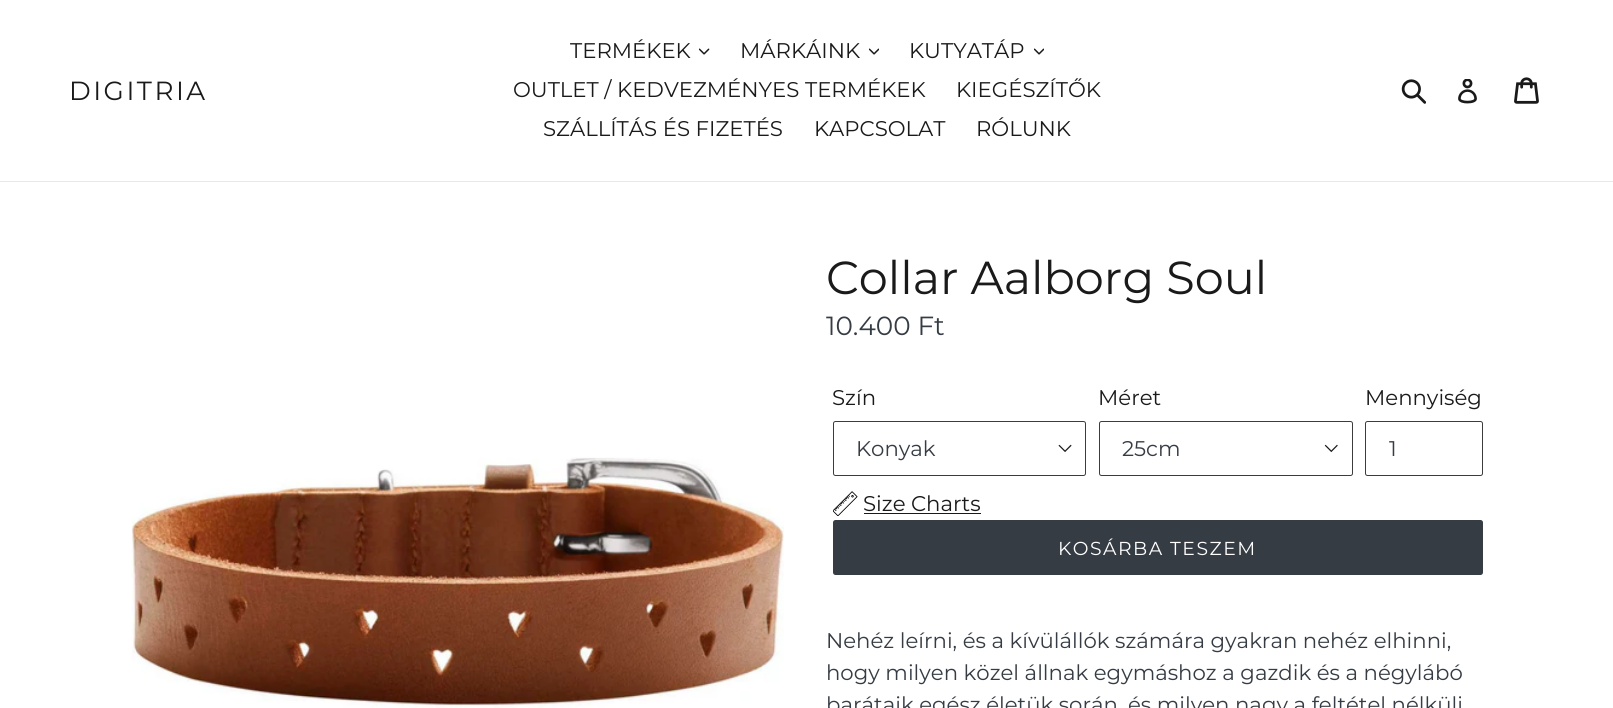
#include <cairo.h>
#include <math.h>
#include <stddef.h>

typedef struct { double x, y; const char *s; } line_t;

static void ink(cairo_t *ctx, unsigned color) {
    cairo_set_source_rgb(ctx, (color >> 16) / 255.0, (color >> 8 & 255) / 255.0, (color & 255) / 255.0);
}

static void write_spaced(cairo_t *ctx, double x, double y, const char *s, double letter, double word) {
    cairo_move_to(ctx, x, y);
    while (*s) {
        char ch[5] = {0};
        int n = 0;
        do ch[n++] = *s++; while ((*s & 0xC0) == 0x80);
        cairo_show_text(ctx, ch);
        cairo_rel_move_to(ctx, letter + word * (*ch == ' '), 0);
    }
}

static void round_path(cairo_t *ctx, double x, double y, double w, double h, double r) {
    cairo_new_sub_path(ctx);
    cairo_arc(ctx, x + w - r, y + h - r, r, 0, M_PI / 2);
    cairo_arc(ctx, x + r, y + h - r, r, M_PI / 2, M_PI);
    cairo_arc(ctx, x + r, y + r, r, M_PI, 1.5 * M_PI);
    cairo_arc(ctx, x + w - r, y + r, r, 1.5 * M_PI, 2 * M_PI);
    cairo_close_path(ctx);
}

static void paste(cairo_t *ctx, const char *path, double x, double y, double w, double h) {
    cairo_surface_t *image = cairo_image_surface_create_from_png(path);
    cairo_save(ctx);
    cairo_set_source_surface(ctx, image, x, y);
    cairo_rectangle(ctx, x, y, w, h);
    cairo_fill(ctx);
    cairo_restore(ctx);
    cairo_surface_destroy(image);
}

int main(void) {
    cairo_surface_t *surface = cairo_image_surface_create(CAIRO_FORMAT_RGB24, 1613, 708);
    cairo_t *ctx = cairo_create(surface);
    cairo_font_options_t *options = cairo_font_options_create();
    cairo_font_options_set_hint_metrics(options, CAIRO_HINT_METRICS_OFF);
    cairo_font_options_set_hint_style(options, CAIRO_HINT_STYLE_NONE);
    cairo_set_font_options(ctx, options);
    cairo_set_miter_limit(ctx, 4);
    ink(ctx, 0xFFFFFF);
    cairo_paint(ctx);
    ink(ctx, 0xE8E9EB);
    cairo_rectangle(ctx, 0, 181, 1613, 1);
    cairo_fill(ctx);
    cairo_select_font_face(ctx, "Montserrat Thin", CAIRO_FONT_SLANT_NORMAL, CAIRO_FONT_WEIGHT_NORMAL);
    cairo_set_font_size(ctx, 26.25);
    ink(ctx, 0x1A1A1A);
    write_spaced(ctx, 69, 100, "DIGITRIA", 2.5, 0);
    cairo_set_font_size(ctx, 21.25);
    cairo_move_to(ctx, 570, 58);
    cairo_show_text(ctx, "TERMÉKEK");
    paste(ctx, "media/1.png", 699, 48, 11, 7);
    cairo_move_to(ctx, 740, 58);
    cairo_show_text(ctx, "MÁRKÁINK");
    paste(ctx, "media/2.png", 869, 48, 10, 7);
    cairo_move_to(ctx, 909, 58);
    cairo_show_text(ctx, "KUTYATÁP");
    paste(ctx, "media/2.png", 1034, 48, 10, 7);
    {
        static const line_t items[] = {
            {513, 97, "OUTLET / KEDVEZMÉNYES TERMÉKEK"},
            {956, 97, "KIEGÉSZÍTŐK"},
            {543, 136, "SZÁLLÍTÁS ÉS FIZETÉS"},
            {814, 136, "KAPCSOLAT"},
            {976, 136, "RÓLUNK"},
        };
        for (size_t i = 0; i < sizeof items / sizeof *items; i++) {
            cairo_move_to(ctx, items[i].x, items[i].y);
            cairo_show_text(ctx, items[i].s);
        }
    }
    paste(ctx, "media/3.png", 1401, 79, 25, 25);
    paste(ctx, "media/4.png", 1458, 79, 19, 25);
    paste(ctx, "media/5.png", 1514, 77, 25, 27);
    paste(ctx, "media/6.png", 131, 457, 653, 251);
    cairo_set_font_size(ctx, 46.25);
    cairo_move_to(ctx, 826, 294);
    cairo_show_text(ctx, "Collar Aalborg Soul");
    cairo_set_font_size(ctx, 26.25);
    ink(ctx, 0x363C44);
    cairo_move_to(ctx, 826, 335);
    cairo_show_text(ctx, "10.400 Ft");
    cairo_set_font_size(ctx, 21.25);
    ink(ctx, 0x1A1A1A);
    cairo_move_to(ctx, 832, 405);
    cairo_show_text(ctx, "Szín");
    paste(ctx, "media/7.png", 1058, 444, 14, 8);
    round_path(ctx, 833.5, 421.5, 252, 54, 2);
    ink(ctx, 0x3C3C3C);
    cairo_set_line_width(ctx, 1);
    cairo_stroke(ctx);
    ink(ctx, 0x363C44);
    cairo_move_to(ctx, 856, 456);
    cairo_show_text(ctx, "Konyak");
    ink(ctx, 0x1A1A1A);
    cairo_move_to(ctx, 1098, 405);
    cairo_show_text(ctx, "Méret");
    paste(ctx, "media/8.png", 1324, 444, 14, 9);
    round_path(ctx, 1099.5, 421.5, 253, 54, 2);
    ink(ctx, 0x3C3C3C);
    cairo_stroke(ctx);
    ink(ctx, 0x363C44);
    cairo_move_to(ctx, 1122, 456);
    cairo_show_text(ctx, "25cm");
    ink(ctx, 0x1A1A1A);
    cairo_move_to(ctx, 1365, 405);
    cairo_show_text(ctx, "Mennyiség");
    round_path(ctx, 1365.5, 421.5, 117, 54, 2);
    ink(ctx, 0x3C3C3C);
    cairo_stroke(ctx);
    ink(ctx, 0x363C44);
    cairo_move_to(ctx, 1389, 456);
    cairo_show_text(ctx, "1");
    paste(ctx, "media/9.png", 833, 491, 25, 25);
    ink(ctx, 0x1A1A1A);
    cairo_move_to(ctx, 863, 511);
    cairo_show_text(ctx, "Size Charts");
    cairo_rectangle(ctx, 864, 513, 117, 1);
    cairo_fill(ctx);
    ink(ctx, 0x363C44);
    round_path(ctx, 833, 520, 650, 55, 2.5);
    cairo_fill(ctx);
    cairo_set_font_size(ctx, 18.75);
    ink(ctx, 0xFFFFFF);
    write_spaced(ctx, 1058, 555, "KOSÁRBA TESZEM", 1.5, 0);
    cairo_set_font_size(ctx, 21.25);
    ink(ctx, 0x363C44);
    {
        static const line_t items[] = {
            {826, 648, "Nehéz leírni, és a kívülállók számára gyakran nehéz elhinni,"},
            {826, 680, "hogy milyen közel állnak egymáshoz a gazdik és a négylábó"},
            {826, 712, "barátaik egész életük során, és milyen nagy a feltétel nélküli"},
        };
        for (size_t i = 0; i < sizeof items / sizeof *items; i++) {
            cairo_move_to(ctx, items[i].x, items[i].y);
            cairo_show_text(ctx, items[i].s);
        }
    }
    cairo_surface_write_to_png(surface, "image.png");
    cairo_font_options_destroy(options);
    cairo_destroy(ctx);
    cairo_surface_destroy(surface);
    return 0;
}
